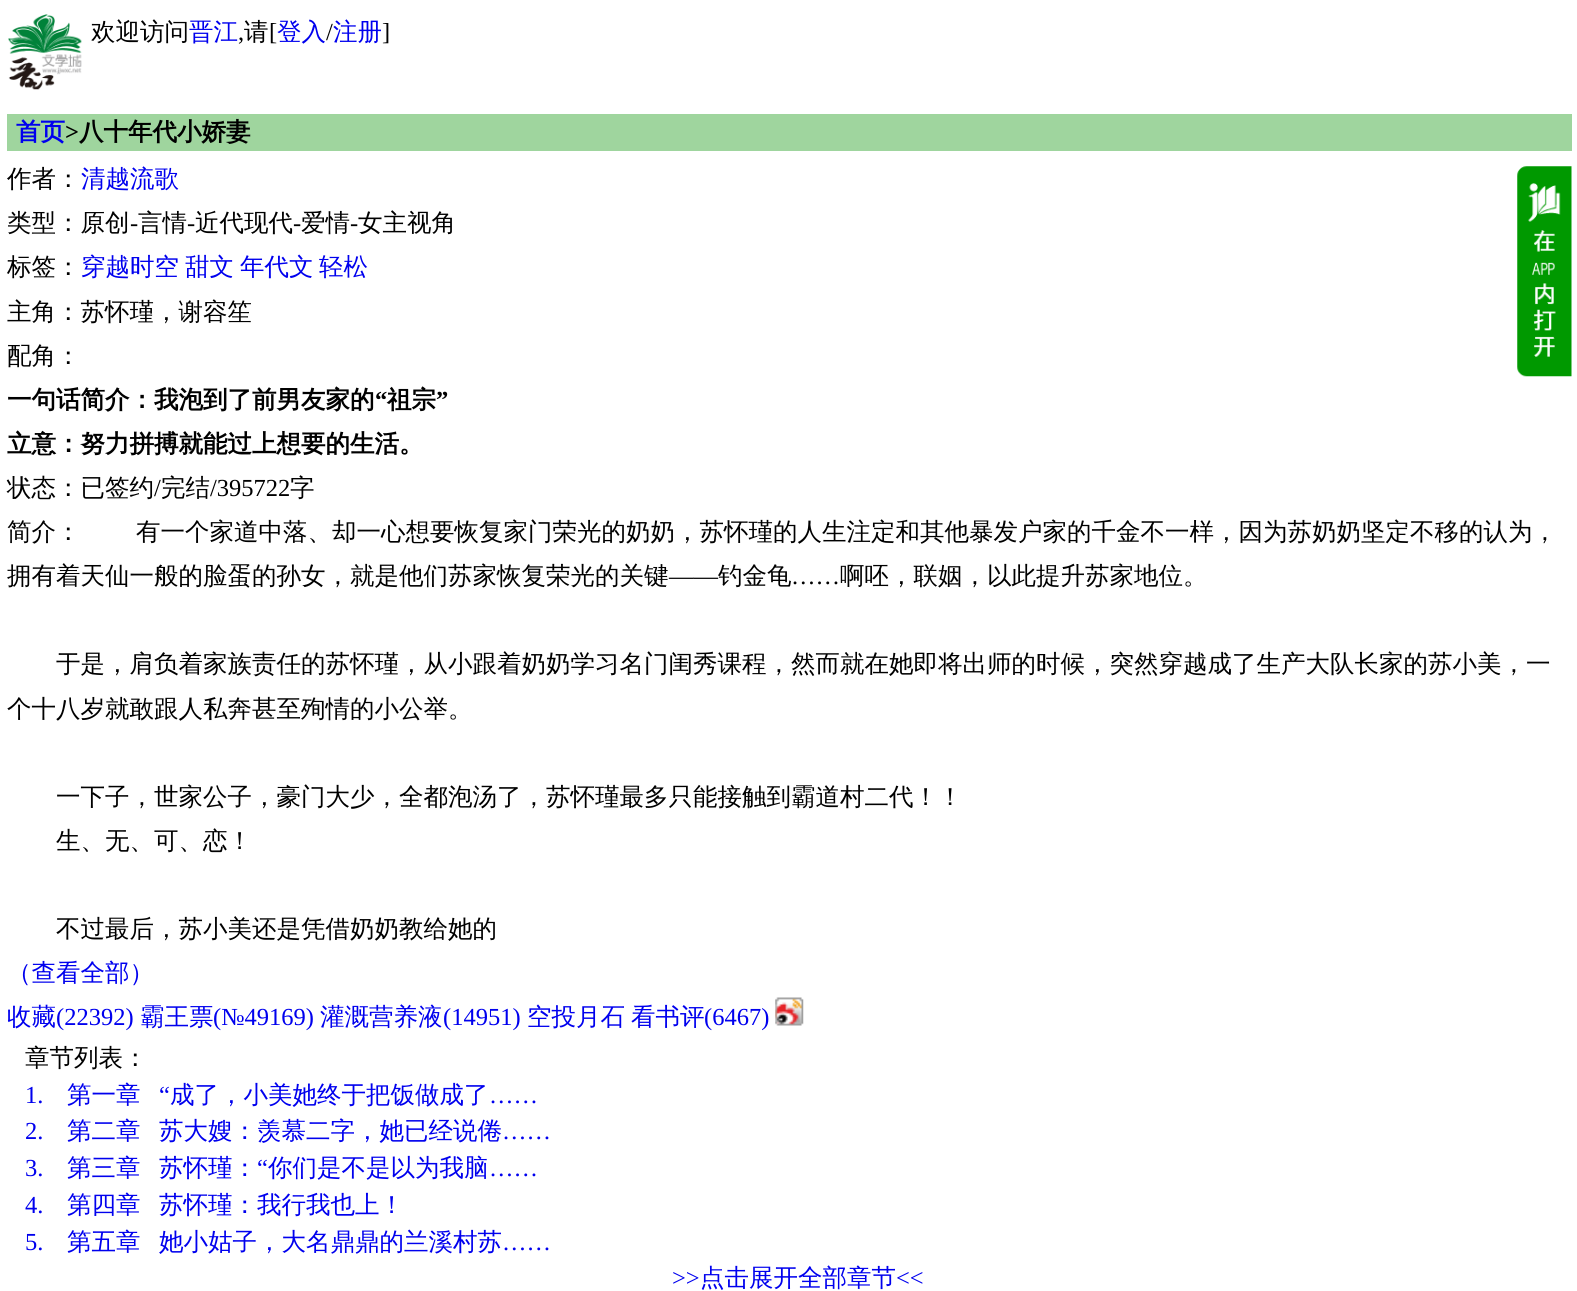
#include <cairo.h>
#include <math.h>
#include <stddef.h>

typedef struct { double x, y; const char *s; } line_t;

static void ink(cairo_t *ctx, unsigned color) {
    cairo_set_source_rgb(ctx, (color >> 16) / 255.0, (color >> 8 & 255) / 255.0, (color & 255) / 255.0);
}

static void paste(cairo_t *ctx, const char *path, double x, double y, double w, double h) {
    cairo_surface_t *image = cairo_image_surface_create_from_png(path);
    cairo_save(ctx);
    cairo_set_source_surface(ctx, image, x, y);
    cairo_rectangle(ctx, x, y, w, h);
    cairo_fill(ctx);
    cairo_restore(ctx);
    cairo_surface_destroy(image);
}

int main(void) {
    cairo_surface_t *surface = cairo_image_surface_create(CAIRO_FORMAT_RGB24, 1577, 1291);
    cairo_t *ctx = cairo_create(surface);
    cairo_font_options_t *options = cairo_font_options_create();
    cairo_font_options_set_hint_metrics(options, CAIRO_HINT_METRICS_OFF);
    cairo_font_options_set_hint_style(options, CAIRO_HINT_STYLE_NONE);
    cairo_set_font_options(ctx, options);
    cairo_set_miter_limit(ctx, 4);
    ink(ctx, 0xFFFFFF);
    cairo_paint(ctx);
    paste(ctx, "media/1.png", 8, 14, 74, 76);
    cairo_select_font_face(ctx, "WenQuanYi Zen Hei Medium", CAIRO_FONT_SLANT_NORMAL, CAIRO_FONT_WEIGHT_NORMAL);
    cairo_set_font_size(ctx, 24.5);
    ink(ctx, 0x000000);
    cairo_move_to(ctx, 91, 40);
    cairo_show_text(ctx, "欢迎访问");
    ink(ctx, 0x0000EE);
    cairo_move_to(ctx, 189, 40);
    cairo_show_text(ctx, "晋江");
    cairo_select_font_face(ctx, "Liberation Serif", CAIRO_FONT_SLANT_NORMAL, CAIRO_FONT_WEIGHT_NORMAL);
    ink(ctx, 0x000000);
    cairo_move_to(ctx, 238, 40);
    cairo_show_text(ctx, ",");
    cairo_select_font_face(ctx, "WenQuanYi Zen Hei Medium", CAIRO_FONT_SLANT_NORMAL, CAIRO_FONT_WEIGHT_NORMAL);
    cairo_move_to(ctx, 244, 40);
    cairo_show_text(ctx, "请");
    cairo_select_font_face(ctx, "Liberation Serif", CAIRO_FONT_SLANT_NORMAL, CAIRO_FONT_WEIGHT_NORMAL);
    cairo_move_to(ctx, 269, 40);
    cairo_show_text(ctx, "[");
    cairo_select_font_face(ctx, "WenQuanYi Zen Hei Medium", CAIRO_FONT_SLANT_NORMAL, CAIRO_FONT_WEIGHT_NORMAL);
    ink(ctx, 0x0000EE);
    cairo_move_to(ctx, 277, 40);
    cairo_show_text(ctx, "登入");
    cairo_select_font_face(ctx, "Liberation Serif", CAIRO_FONT_SLANT_NORMAL, CAIRO_FONT_WEIGHT_NORMAL);
    ink(ctx, 0x000000);
    cairo_move_to(ctx, 326, 40);
    cairo_show_text(ctx, "/");
    cairo_select_font_face(ctx, "WenQuanYi Zen Hei Medium", CAIRO_FONT_SLANT_NORMAL, CAIRO_FONT_WEIGHT_NORMAL);
    ink(ctx, 0x0000EE);
    cairo_move_to(ctx, 333, 40);
    cairo_show_text(ctx, "注册");
    cairo_select_font_face(ctx, "Liberation Serif", CAIRO_FONT_SLANT_NORMAL, CAIRO_FONT_WEIGHT_NORMAL);
    ink(ctx, 0x000000);
    cairo_move_to(ctx, 382, 40);
    cairo_show_text(ctx, "]");
    ink(ctx, 0x9FD59E);
    cairo_rectangle(ctx, 7, 114, 1565, 37);
    cairo_fill(ctx);
    cairo_select_font_face(ctx, "WenQuanYi Zen Hei", CAIRO_FONT_SLANT_NORMAL, CAIRO_FONT_WEIGHT_BOLD);
    ink(ctx, 0x0000EE);
    cairo_move_to(ctx, 16, 140);
    cairo_show_text(ctx, "首页");
    cairo_select_font_face(ctx, "Liberation Serif", CAIRO_FONT_SLANT_NORMAL, CAIRO_FONT_WEIGHT_BOLD);
    ink(ctx, 0x000000);
    cairo_move_to(ctx, 65, 140);
    cairo_show_text(ctx, ">");
    cairo_select_font_face(ctx, "WenQuanYi Zen Hei", CAIRO_FONT_SLANT_NORMAL, CAIRO_FONT_WEIGHT_BOLD);
    cairo_move_to(ctx, 79, 140);
    cairo_show_text(ctx, "八十年代小娇妻");
    cairo_select_font_face(ctx, "WenQuanYi Zen Hei Medium", CAIRO_FONT_SLANT_NORMAL, CAIRO_FONT_WEIGHT_NORMAL);
    cairo_move_to(ctx, 7, 187);
    cairo_show_text(ctx, "作者：");
    ink(ctx, 0x0000EE);
    cairo_move_to(ctx, 81, 187);
    cairo_show_text(ctx, "清越流歌");
    paste(ctx, "media/2.png", 1517, 166, 55, 211);
    ink(ctx, 0x000000);
    cairo_move_to(ctx, 7, 231);
    cairo_show_text(ctx, "类型：原创");
    cairo_select_font_face(ctx, "Liberation Serif", CAIRO_FONT_SLANT_NORMAL, CAIRO_FONT_WEIGHT_NORMAL);
    cairo_move_to(ctx, 130, 231);
    cairo_show_text(ctx, "-");
    cairo_select_font_face(ctx, "WenQuanYi Zen Hei Medium", CAIRO_FONT_SLANT_NORMAL, CAIRO_FONT_WEIGHT_NORMAL);
    cairo_move_to(ctx, 138, 231);
    cairo_show_text(ctx, "言情");
    cairo_select_font_face(ctx, "Liberation Serif", CAIRO_FONT_SLANT_NORMAL, CAIRO_FONT_WEIGHT_NORMAL);
    cairo_move_to(ctx, 187, 231);
    cairo_show_text(ctx, "-");
    cairo_select_font_face(ctx, "WenQuanYi Zen Hei Medium", CAIRO_FONT_SLANT_NORMAL, CAIRO_FONT_WEIGHT_NORMAL);
    cairo_move_to(ctx, 195, 231);
    cairo_show_text(ctx, "近代现代");
    cairo_select_font_face(ctx, "Liberation Serif", CAIRO_FONT_SLANT_NORMAL, CAIRO_FONT_WEIGHT_NORMAL);
    cairo_move_to(ctx, 293, 231);
    cairo_show_text(ctx, "-");
    cairo_select_font_face(ctx, "WenQuanYi Zen Hei Medium", CAIRO_FONT_SLANT_NORMAL, CAIRO_FONT_WEIGHT_NORMAL);
    cairo_move_to(ctx, 301, 231);
    cairo_show_text(ctx, "爱情");
    cairo_select_font_face(ctx, "Liberation Serif", CAIRO_FONT_SLANT_NORMAL, CAIRO_FONT_WEIGHT_NORMAL);
    cairo_move_to(ctx, 350, 231);
    cairo_show_text(ctx, "-");
    cairo_select_font_face(ctx, "WenQuanYi Zen Hei Medium", CAIRO_FONT_SLANT_NORMAL, CAIRO_FONT_WEIGHT_NORMAL);
    cairo_move_to(ctx, 358, 231);
    cairo_show_text(ctx, "女主视角");
    cairo_move_to(ctx, 7, 275);
    cairo_show_text(ctx, "标签：");
    ink(ctx, 0x0000EE);
    {
        static const line_t items[] = {
            {81, 275, "穿越时空"},
            {185, 275, "甜文"},
            {240, 275, "年代文"},
            {319, 275, "轻松"},
        };
        for (size_t i = 0; i < sizeof items / sizeof *items; i++) {
            cairo_move_to(ctx, items[i].x, items[i].y);
            cairo_show_text(ctx, items[i].s);
        }
    }
    ink(ctx, 0x000000);
    cairo_move_to(ctx, 7, 320);
    cairo_show_text(ctx, "主角：苏怀瑾，谢容笙");
    cairo_move_to(ctx, 7, 364);
    cairo_show_text(ctx, "配角：");
    cairo_select_font_face(ctx, "WenQuanYi Zen Hei", CAIRO_FONT_SLANT_NORMAL, CAIRO_FONT_WEIGHT_BOLD);
    cairo_move_to(ctx, 7, 408);
    cairo_show_text(ctx, "一句话简介：我泡到了前男友家的");
    cairo_select_font_face(ctx, "Liberation Serif", CAIRO_FONT_SLANT_NORMAL, CAIRO_FONT_WEIGHT_BOLD);
    cairo_move_to(ctx, 375, 408);
    cairo_show_text(ctx, "“");
    cairo_select_font_face(ctx, "WenQuanYi Zen Hei", CAIRO_FONT_SLANT_NORMAL, CAIRO_FONT_WEIGHT_BOLD);
    cairo_move_to(ctx, 387, 408);
    cairo_show_text(ctx, "祖宗");
    cairo_select_font_face(ctx, "Liberation Serif", CAIRO_FONT_SLANT_NORMAL, CAIRO_FONT_WEIGHT_BOLD);
    cairo_move_to(ctx, 436, 408);
    cairo_show_text(ctx, "”");
    cairo_select_font_face(ctx, "WenQuanYi Zen Hei", CAIRO_FONT_SLANT_NORMAL, CAIRO_FONT_WEIGHT_BOLD);
    cairo_move_to(ctx, 7, 452);
    cairo_show_text(ctx, "立意：努力拼搏就能过上想要的生活。");
    cairo_select_font_face(ctx, "WenQuanYi Zen Hei Medium", CAIRO_FONT_SLANT_NORMAL, CAIRO_FONT_WEIGHT_NORMAL);
    cairo_move_to(ctx, 7, 496);
    cairo_show_text(ctx, "状态：已签约");
    cairo_select_font_face(ctx, "Liberation Serif", CAIRO_FONT_SLANT_NORMAL, CAIRO_FONT_WEIGHT_NORMAL);
    cairo_move_to(ctx, 154, 496);
    cairo_show_text(ctx, "/");
    cairo_select_font_face(ctx, "WenQuanYi Zen Hei Medium", CAIRO_FONT_SLANT_NORMAL, CAIRO_FONT_WEIGHT_NORMAL);
    cairo_move_to(ctx, 161, 496);
    cairo_show_text(ctx, "完结");
    cairo_select_font_face(ctx, "Liberation Serif", CAIRO_FONT_SLANT_NORMAL, CAIRO_FONT_WEIGHT_NORMAL);
    cairo_move_to(ctx, 210, 496);
    cairo_show_text(ctx, "/395722");
    cairo_select_font_face(ctx, "WenQuanYi Zen Hei Medium", CAIRO_FONT_SLANT_NORMAL, CAIRO_FONT_WEIGHT_NORMAL);
    {
        static const line_t items[] = {
            {290, 496, "字"},
            {7, 540, "简介："},
            {136, 540, "有一个家道中落、却一心想要恢复家门荣光的奶奶，苏怀瑾的人生注定和其他暴发户家的千金不一样，因为苏奶奶坚定不移的认为，"},
            {7, 584, "拥有着天仙一般的脸蛋的孙女，就是他们苏家恢复荣光的关键"},
        };
        for (size_t i = 0; i < sizeof items / sizeof *items; i++) {
            cairo_move_to(ctx, items[i].x, items[i].y);
            cairo_show_text(ctx, items[i].s);
        }
    }
    cairo_select_font_face(ctx, "Liberation Serif", CAIRO_FONT_SLANT_NORMAL, CAIRO_FONT_WEIGHT_NORMAL);
    cairo_move_to(ctx, 669, 584);
    cairo_show_text(ctx, "——");
    cairo_select_font_face(ctx, "WenQuanYi Zen Hei Medium", CAIRO_FONT_SLANT_NORMAL, CAIRO_FONT_WEIGHT_NORMAL);
    cairo_move_to(ctx, 718, 584);
    cairo_show_text(ctx, "钓金龟");
    cairo_move_to(ctx, 840, 584);
    cairo_show_text(ctx, "啊呸，联姻，以此提升苏家地位。");
    cairo_select_font_face(ctx, "Liberation Serif", CAIRO_FONT_SLANT_NORMAL, CAIRO_FONT_WEIGHT_NORMAL);
    cairo_move_to(ctx, 791, 584);
    cairo_show_text(ctx, "……");
    cairo_select_font_face(ctx, "WenQuanYi Zen Hei Medium", CAIRO_FONT_SLANT_NORMAL, CAIRO_FONT_WEIGHT_NORMAL);
    {
        static const line_t items[] = {
            {56, 672, "于是，肩负着家族责任的苏怀瑾，从小跟着奶奶学习名门闺秀课程，然而就在她即将出师的时候，突然穿越成了生产大队长家的苏小美，一"},
            {7, 717, "个十八岁就敢跟人私奔甚至殉情的小公举。"},
            {56, 805, "一下子，世家公子，豪门大少，全都泡汤了，苏怀瑾最多只能接触到霸道村二代！！"},
            {56, 849, "生、无、可、恋！"},
            {56, 937, "不过最后，苏小美还是凭借奶奶教给她的"},
        };
        for (size_t i = 0; i < sizeof items / sizeof *items; i++) {
            cairo_move_to(ctx, items[i].x, items[i].y);
            cairo_show_text(ctx, items[i].s);
        }
    }
    ink(ctx, 0x0000EE);
    cairo_move_to(ctx, 7, 981);
    cairo_show_text(ctx, "（查看全部）");
    cairo_move_to(ctx, 7, 1025);
    cairo_show_text(ctx, "收藏");
    cairo_select_font_face(ctx, "Liberation Serif", CAIRO_FONT_SLANT_NORMAL, CAIRO_FONT_WEIGHT_NORMAL);
    cairo_move_to(ctx, 56, 1025);
    cairo_show_text(ctx, "(22392)");
    cairo_select_font_face(ctx, "WenQuanYi Zen Hei Medium", CAIRO_FONT_SLANT_NORMAL, CAIRO_FONT_WEIGHT_NORMAL);
    cairo_move_to(ctx, 140, 1025);
    cairo_show_text(ctx, "霸王票");
    cairo_select_font_face(ctx, "Liberation Serif", CAIRO_FONT_SLANT_NORMAL, CAIRO_FONT_WEIGHT_NORMAL);
    cairo_move_to(ctx, 213, 1025);
    cairo_show_text(ctx, "(№49169)");
    cairo_select_font_face(ctx, "WenQuanYi Zen Hei Medium", CAIRO_FONT_SLANT_NORMAL, CAIRO_FONT_WEIGHT_NORMAL);
    cairo_move_to(ctx, 320, 1025);
    cairo_show_text(ctx, "灌溉营养液");
    cairo_select_font_face(ctx, "Liberation Serif", CAIRO_FONT_SLANT_NORMAL, CAIRO_FONT_WEIGHT_NORMAL);
    cairo_move_to(ctx, 443, 1025);
    cairo_show_text(ctx, "(14951)");
    cairo_select_font_face(ctx, "WenQuanYi Zen Hei Medium", CAIRO_FONT_SLANT_NORMAL, CAIRO_FONT_WEIGHT_NORMAL);
    cairo_move_to(ctx, 527, 1025);
    cairo_show_text(ctx, "空投月石");
    cairo_move_to(ctx, 631, 1025);
    cairo_show_text(ctx, "看书评");
    cairo_select_font_face(ctx, "Liberation Serif", CAIRO_FONT_SLANT_NORMAL, CAIRO_FONT_WEIGHT_NORMAL);
    cairo_move_to(ctx, 704, 1025);
    cairo_show_text(ctx, "(6467)");
    paste(ctx, "media/3.png", 775, 997, 29, 29);
    cairo_select_font_face(ctx, "WenQuanYi Zen Hei Medium", CAIRO_FONT_SLANT_NORMAL, CAIRO_FONT_WEIGHT_NORMAL);
    ink(ctx, 0x000000);
    cairo_move_to(ctx, 25, 1066);
    cairo_show_text(ctx, "章节列表：");
    cairo_select_font_face(ctx, "Liberation Serif", CAIRO_FONT_SLANT_NORMAL, CAIRO_FONT_WEIGHT_NORMAL);
    ink(ctx, 0x0000EE);
    cairo_move_to(ctx, 25, 1103);
    cairo_show_text(ctx, "1.");
    cairo_select_font_face(ctx, "WenQuanYi Zen Hei Medium", CAIRO_FONT_SLANT_NORMAL, CAIRO_FONT_WEIGHT_NORMAL);
    cairo_move_to(ctx, 67, 1103);
    cairo_show_text(ctx, "第一章");
    cairo_select_font_face(ctx, "Liberation Serif", CAIRO_FONT_SLANT_NORMAL, CAIRO_FONT_WEIGHT_NORMAL);
    cairo_move_to(ctx, 159, 1103);
    cairo_show_text(ctx, "“");
    cairo_select_font_face(ctx, "WenQuanYi Zen Hei Medium", CAIRO_FONT_SLANT_NORMAL, CAIRO_FONT_WEIGHT_NORMAL);
    cairo_move_to(ctx, 170, 1103);
    cairo_show_text(ctx, "成了，小美她终于把饭做成了");
    cairo_select_font_face(ctx, "Liberation Serif", CAIRO_FONT_SLANT_NORMAL, CAIRO_FONT_WEIGHT_NORMAL);
    cairo_move_to(ctx, 489, 1103);
    cairo_show_text(ctx, "……");
    cairo_move_to(ctx, 25, 1139);
    cairo_show_text(ctx, "2.");
    cairo_select_font_face(ctx, "WenQuanYi Zen Hei Medium", CAIRO_FONT_SLANT_NORMAL, CAIRO_FONT_WEIGHT_NORMAL);
    cairo_move_to(ctx, 67, 1139);
    cairo_show_text(ctx, "第二章");
    cairo_move_to(ctx, 159, 1139);
    cairo_show_text(ctx, "苏大嫂：羡慕二字，她已经说倦");
    cairo_select_font_face(ctx, "Liberation Serif", CAIRO_FONT_SLANT_NORMAL, CAIRO_FONT_WEIGHT_NORMAL);
    cairo_move_to(ctx, 502, 1139);
    cairo_show_text(ctx, "……");
    cairo_move_to(ctx, 25, 1176);
    cairo_show_text(ctx, "3.");
    cairo_select_font_face(ctx, "WenQuanYi Zen Hei Medium", CAIRO_FONT_SLANT_NORMAL, CAIRO_FONT_WEIGHT_NORMAL);
    cairo_move_to(ctx, 67, 1176);
    cairo_show_text(ctx, "第三章");
    cairo_move_to(ctx, 159, 1176);
    cairo_show_text(ctx, "苏怀瑾：");
    cairo_select_font_face(ctx, "Liberation Serif", CAIRO_FONT_SLANT_NORMAL, CAIRO_FONT_WEIGHT_NORMAL);
    cairo_move_to(ctx, 257, 1176);
    cairo_show_text(ctx, "“");
    cairo_select_font_face(ctx, "WenQuanYi Zen Hei Medium", CAIRO_FONT_SLANT_NORMAL, CAIRO_FONT_WEIGHT_NORMAL);
    cairo_move_to(ctx, 268, 1176);
    cairo_show_text(ctx, "你们是不是以为我脑");
    cairo_select_font_face(ctx, "Liberation Serif", CAIRO_FONT_SLANT_NORMAL, CAIRO_FONT_WEIGHT_NORMAL);
    cairo_move_to(ctx, 489, 1176);
    cairo_show_text(ctx, "……");
    cairo_move_to(ctx, 25, 1213);
    cairo_show_text(ctx, "4.");
    cairo_select_font_face(ctx, "WenQuanYi Zen Hei Medium", CAIRO_FONT_SLANT_NORMAL, CAIRO_FONT_WEIGHT_NORMAL);
    cairo_move_to(ctx, 67, 1213);
    cairo_show_text(ctx, "第四章");
    cairo_move_to(ctx, 159, 1213);
    cairo_show_text(ctx, "苏怀瑾：我行我也上！");
    cairo_select_font_face(ctx, "Liberation Serif", CAIRO_FONT_SLANT_NORMAL, CAIRO_FONT_WEIGHT_NORMAL);
    cairo_move_to(ctx, 25, 1250);
    cairo_show_text(ctx, "5.");
    cairo_select_font_face(ctx, "WenQuanYi Zen Hei Medium", CAIRO_FONT_SLANT_NORMAL, CAIRO_FONT_WEIGHT_NORMAL);
    cairo_move_to(ctx, 67, 1250);
    cairo_show_text(ctx, "第五章");
    cairo_move_to(ctx, 159, 1250);
    cairo_show_text(ctx, "她小姑子，大名鼎鼎的兰溪村苏");
    cairo_select_font_face(ctx, "Liberation Serif", CAIRO_FONT_SLANT_NORMAL, CAIRO_FONT_WEIGHT_NORMAL);
    cairo_move_to(ctx, 502, 1250);
    cairo_show_text(ctx, "……");
    cairo_move_to(ctx, 672, 1286);
    cairo_show_text(ctx, ">>");
    cairo_select_font_face(ctx, "WenQuanYi Zen Hei Medium", CAIRO_FONT_SLANT_NORMAL, CAIRO_FONT_WEIGHT_NORMAL);
    cairo_move_to(ctx, 700, 1286);
    cairo_show_text(ctx, "点击展开全部章节");
    cairo_select_font_face(ctx, "Liberation Serif", CAIRO_FONT_SLANT_NORMAL, CAIRO_FONT_WEIGHT_NORMAL);
    cairo_move_to(ctx, 896, 1286);
    cairo_show_text(ctx, "<<");
    cairo_surface_write_to_png(surface, "image.png");
    cairo_font_options_destroy(options);
    cairo_destroy(ctx);
    cairo_surface_destroy(surface);
    return 0;
}
